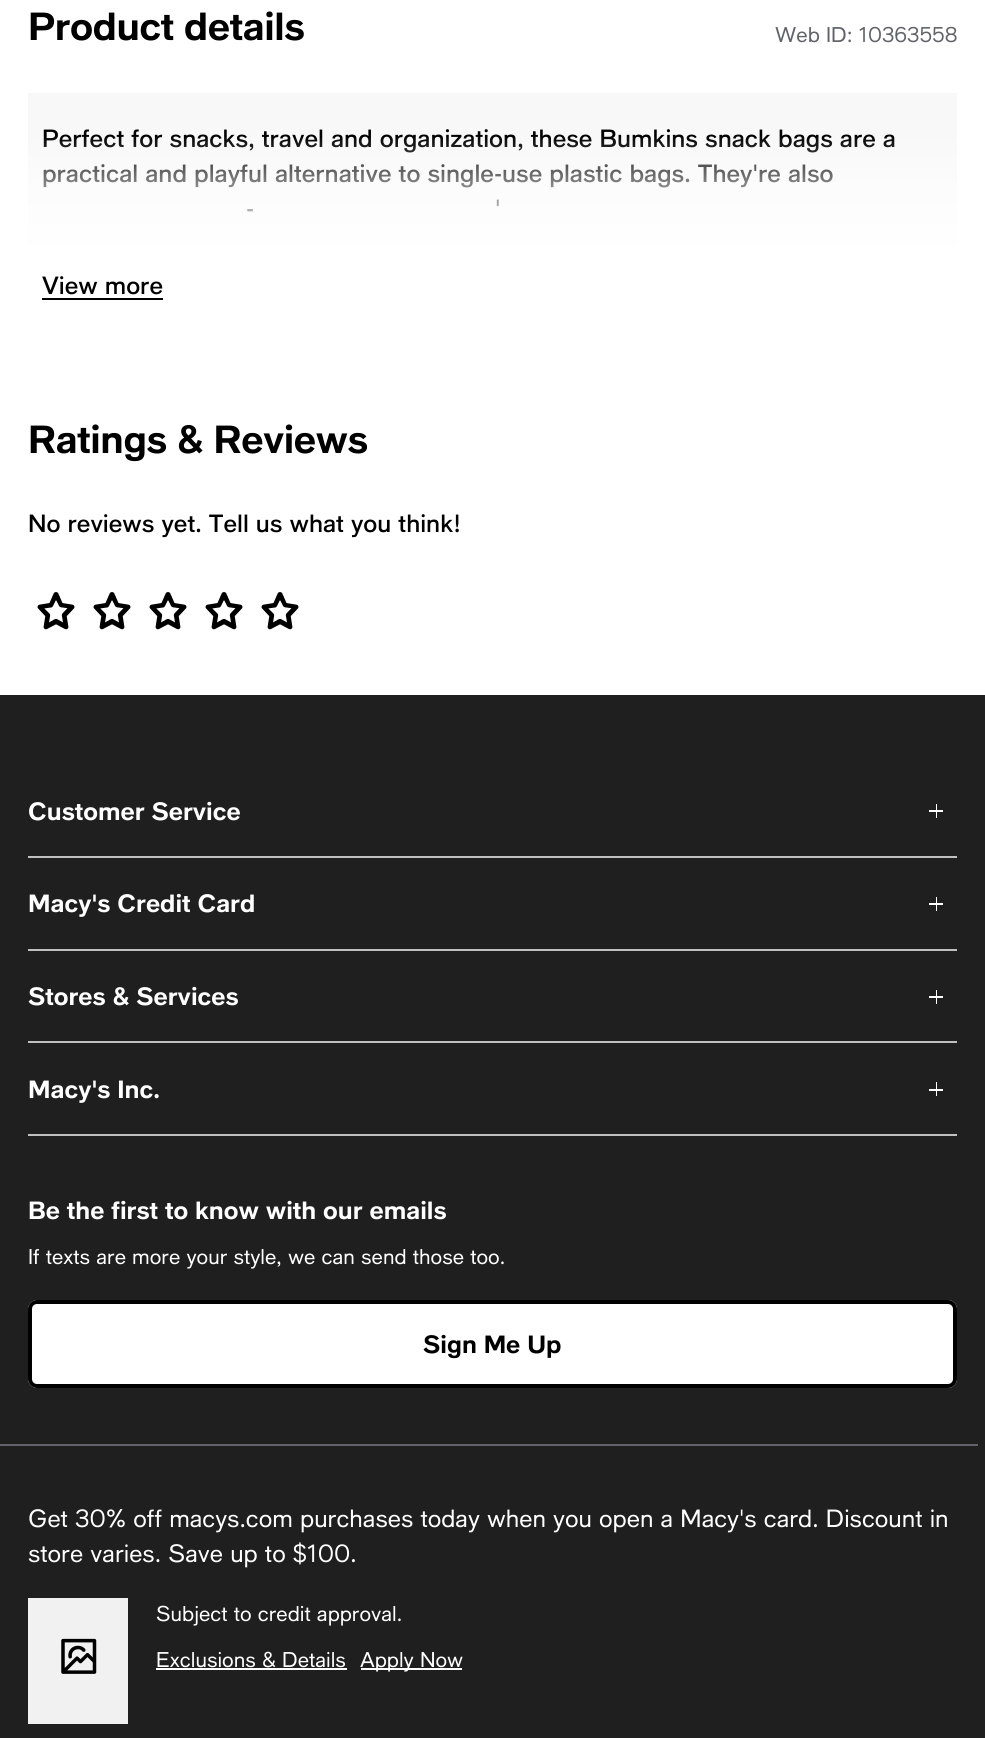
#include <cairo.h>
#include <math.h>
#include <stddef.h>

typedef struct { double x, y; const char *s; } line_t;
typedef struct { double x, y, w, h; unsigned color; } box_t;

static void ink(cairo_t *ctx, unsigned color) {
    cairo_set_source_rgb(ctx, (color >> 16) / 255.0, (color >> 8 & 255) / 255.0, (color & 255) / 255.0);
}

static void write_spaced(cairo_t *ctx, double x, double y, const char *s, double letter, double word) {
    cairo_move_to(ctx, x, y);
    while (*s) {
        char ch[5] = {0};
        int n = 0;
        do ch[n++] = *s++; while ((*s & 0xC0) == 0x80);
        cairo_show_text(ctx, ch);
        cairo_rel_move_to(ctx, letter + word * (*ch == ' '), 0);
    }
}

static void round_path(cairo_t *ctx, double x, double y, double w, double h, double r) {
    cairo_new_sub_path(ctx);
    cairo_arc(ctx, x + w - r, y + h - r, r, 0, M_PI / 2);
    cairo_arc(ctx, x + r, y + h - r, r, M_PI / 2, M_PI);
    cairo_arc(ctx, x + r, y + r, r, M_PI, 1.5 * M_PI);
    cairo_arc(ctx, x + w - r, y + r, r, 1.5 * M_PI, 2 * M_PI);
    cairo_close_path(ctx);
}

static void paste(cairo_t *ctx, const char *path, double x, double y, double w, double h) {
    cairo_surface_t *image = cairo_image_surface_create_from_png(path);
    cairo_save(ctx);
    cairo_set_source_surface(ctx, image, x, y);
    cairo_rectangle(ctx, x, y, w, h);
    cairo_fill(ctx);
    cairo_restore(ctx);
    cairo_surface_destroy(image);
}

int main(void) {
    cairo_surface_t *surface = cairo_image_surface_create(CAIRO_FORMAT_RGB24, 985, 1738);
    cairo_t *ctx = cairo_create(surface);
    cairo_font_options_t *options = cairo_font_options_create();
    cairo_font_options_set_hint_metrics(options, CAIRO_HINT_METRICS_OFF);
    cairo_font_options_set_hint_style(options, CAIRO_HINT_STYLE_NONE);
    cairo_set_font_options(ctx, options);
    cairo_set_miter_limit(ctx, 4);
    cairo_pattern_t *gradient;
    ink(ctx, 0xFFFFFF);
    cairo_paint(ctx);
    cairo_select_font_face(ctx, "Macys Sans", CAIRO_FONT_SLANT_NORMAL, CAIRO_FONT_WEIGHT_BOLD);
    cairo_set_font_size(ctx, 38.5);
    ink(ctx, 0x000000);
    write_spaced(ctx, 28, 40, "Product details", -0.4, 0);
    cairo_select_font_face(ctx, "Macys Sans", CAIRO_FONT_SLANT_NORMAL, CAIRO_FONT_WEIGHT_NORMAL);
    cairo_set_font_size(ctx, 21);
    ink(ctx, 0x626369);
    cairo_move_to(ctx, 775, 42);
    cairo_show_text(ctx, "Web ID: 10363558");
    ink(ctx, 0xF8F8F8);
    cairo_rectangle(ctx, 28, 93, 929, 162);
    cairo_fill(ctx);
    cairo_select_font_face(ctx, "Macys Sans Medium", CAIRO_FONT_SLANT_NORMAL, CAIRO_FONT_WEIGHT_NORMAL);
    cairo_set_font_size(ctx, 24.5);
    ink(ctx, 0x000000);
    {
        static const line_t items[] = {
            {42, 147, "Perfect for snacks, travel and organization, these Bumkins snack bags are a"},
            {42, 182, "practical and playful alternative to single-use plastic bags. They're also"},
            {495, 217, "'"},
            {246, 217, "-"},
        };
        for (size_t i = 0; i < sizeof items / sizeof *items; i++) {
            cairo_move_to(ctx, items[i].x, items[i].y);
            cairo_show_text(ctx, items[i].s);
        }
    }
    gradient = cairo_pattern_create_linear(493, 135, 493, 303);
    cairo_pattern_add_color_stop_rgba(gradient, 0, 1, 1, 1, 0);
    cairo_pattern_add_color_stop_rgba(gradient, 0.28, 1, 1, 1, 0.5);
    cairo_pattern_add_color_stop_rgba(gradient, 0.72, 1, 1, 1, 1);
    cairo_set_source(ctx, gradient);
    cairo_pattern_destroy(gradient);
    cairo_rectangle(ctx, 28, 137, 929, 118);
    cairo_fill(ctx);
    ink(ctx, 0x000000);
    cairo_move_to(ctx, 42, 294);
    cairo_show_text(ctx, "View more");
    cairo_rectangle(ctx, 42, 298, 121, 2);
    cairo_fill(ctx);
    cairo_select_font_face(ctx, "Macys Sans", CAIRO_FONT_SLANT_NORMAL, CAIRO_FONT_WEIGHT_BOLD);
    cairo_set_font_size(ctx, 38.5);
    write_spaced(ctx, 28, 453, "Ratings & Reviews", -0.4, 0);
    cairo_select_font_face(ctx, "Macys Sans Medium", CAIRO_FONT_SLANT_NORMAL, CAIRO_FONT_WEIGHT_NORMAL);
    cairo_set_font_size(ctx, 24.5);
    cairo_move_to(ctx, 28, 532);
    cairo_show_text(ctx, "No reviews yet. Tell us what you think!");
    paste(ctx, "media/1.png", 37, 592, 38, 38);
    paste(ctx, "media/1.png", 93, 592, 38, 38);
    paste(ctx, "media/1.png", 149, 592, 38, 38);
    paste(ctx, "media/1.png", 205, 592, 38, 38);
    paste(ctx, "media/1.png", 261, 592, 38, 38);
    ink(ctx, 0x1F1F1F);
    cairo_rectangle(ctx, 0, 695, 985, 1043);
    cairo_fill(ctx);
    ink(ctx, 0xC0C0C0);
    cairo_rectangle(ctx, 28, 856, 929, 2);
    cairo_fill(ctx);
    cairo_select_font_face(ctx, "Macys Sans", CAIRO_FONT_SLANT_NORMAL, CAIRO_FONT_WEIGHT_BOLD);
    ink(ctx, 0xFFFFFF);
    cairo_move_to(ctx, 28, 820);
    cairo_show_text(ctx, "Customer Service");
    {
        static const box_t items[] = {
            {929, 810, 14, 2, 0xFFFFFF},
            {936, 804, 1, 14, 0xFFFFFF},
            {28, 949, 929, 2, 0xC0C0C0},
        };
        for (size_t i = 0; i < sizeof items / sizeof *items; i++) {
            ink(ctx, items[i].color);
            cairo_rectangle(ctx, items[i].x, items[i].y, items[i].w, items[i].h);
            cairo_fill(ctx);
        }
    }
    ink(ctx, 0xFFFFFF);
    cairo_move_to(ctx, 28, 912);
    cairo_show_text(ctx, "Macy's Credit Card");
    {
        static const box_t items[] = {
            {929, 903, 14, 2, 0xFFFFFF},
            {936, 897, 1, 14, 0xFFFFFF},
            {28, 1041, 929, 2, 0xC0C0C0},
        };
        for (size_t i = 0; i < sizeof items / sizeof *items; i++) {
            ink(ctx, items[i].color);
            cairo_rectangle(ctx, items[i].x, items[i].y, items[i].w, items[i].h);
            cairo_fill(ctx);
        }
    }
    ink(ctx, 0xFFFFFF);
    cairo_move_to(ctx, 28, 1005);
    cairo_show_text(ctx, "Stores & Services");
    {
        static const box_t items[] = {
            {929, 996, 14, 2, 0xFFFFFF},
            {936, 990, 1, 14, 0xFFFFFF},
            {28, 1134, 929, 2, 0xC0C0C0},
        };
        for (size_t i = 0; i < sizeof items / sizeof *items; i++) {
            ink(ctx, items[i].color);
            cairo_rectangle(ctx, items[i].x, items[i].y, items[i].w, items[i].h);
            cairo_fill(ctx);
        }
    }
    ink(ctx, 0xFFFFFF);
    cairo_move_to(ctx, 28, 1098);
    cairo_show_text(ctx, "Macy's Inc.");
    cairo_rectangle(ctx, 929, 1089, 14, 2);
    cairo_fill(ctx);
    cairo_rectangle(ctx, 936, 1082, 1, 14);
    cairo_fill(ctx);
    cairo_move_to(ctx, 28, 1219);
    cairo_show_text(ctx, "Be the first to know with our emails");
    cairo_select_font_face(ctx, "Macys Sans", CAIRO_FONT_SLANT_NORMAL, CAIRO_FONT_WEIGHT_NORMAL);
    cairo_set_font_size(ctx, 21);
    cairo_move_to(ctx, 28, 1264);
    cairo_show_text(ctx, "If texts are more your style, we can send those too.");
    round_path(ctx, 28, 1300, 929, 88, 9);
    cairo_fill(ctx);
    round_path(ctx, 30, 1302, 925, 84, 7);
    ink(ctx, 0x000000);
    cairo_set_line_width(ctx, 4);
    cairo_stroke(ctx);
    cairo_select_font_face(ctx, "Macys Sans", CAIRO_FONT_SLANT_NORMAL, CAIRO_FONT_WEIGHT_BOLD);
    cairo_set_font_size(ctx, 24.5);
    cairo_move_to(ctx, 423, 1353);
    cairo_show_text(ctx, "Sign Me Up");
    ink(ctx, 0x626369);
    cairo_rectangle(ctx, 0, 1444, 978, 2);
    cairo_fill(ctx);
    cairo_select_font_face(ctx, "Macys Sans", CAIRO_FONT_SLANT_NORMAL, CAIRO_FONT_WEIGHT_NORMAL);
    ink(ctx, 0xFFFFFF);
    cairo_move_to(ctx, 28, 1527);
    cairo_show_text(ctx, "Get 30% off macys.com purchases today when you open a Macy's card. Discount in");
    cairo_move_to(ctx, 28, 1562);
    cairo_show_text(ctx, "store varies. Save up to $100.");
    ink(ctx, 0xF1F1F1);
    cairo_rectangle(ctx, 28, 1598, 100, 126);
    cairo_fill(ctx);
    paste(ctx, "media/2.png", 61, 1638, 36, 36);
    cairo_set_font_size(ctx, 21);
    ink(ctx, 0xFFFFFF);
    cairo_move_to(ctx, 156, 1621);
    cairo_show_text(ctx, "Subject to credit approval.");
    cairo_move_to(ctx, 156, 1667);
    cairo_show_text(ctx, "Exclusions & Details");
    cairo_rectangle(ctx, 156, 1668, 191, 2);
    cairo_fill(ctx);
    cairo_rectangle(ctx, 361, 1668, 101, 2);
    cairo_fill(ctx);
    cairo_move_to(ctx, 360, 1667);
    cairo_show_text(ctx, "Apply Now");
    cairo_surface_write_to_png(surface, "image.png");
    cairo_font_options_destroy(options);
    cairo_destroy(ctx);
    cairo_surface_destroy(surface);
    return 0;
}
